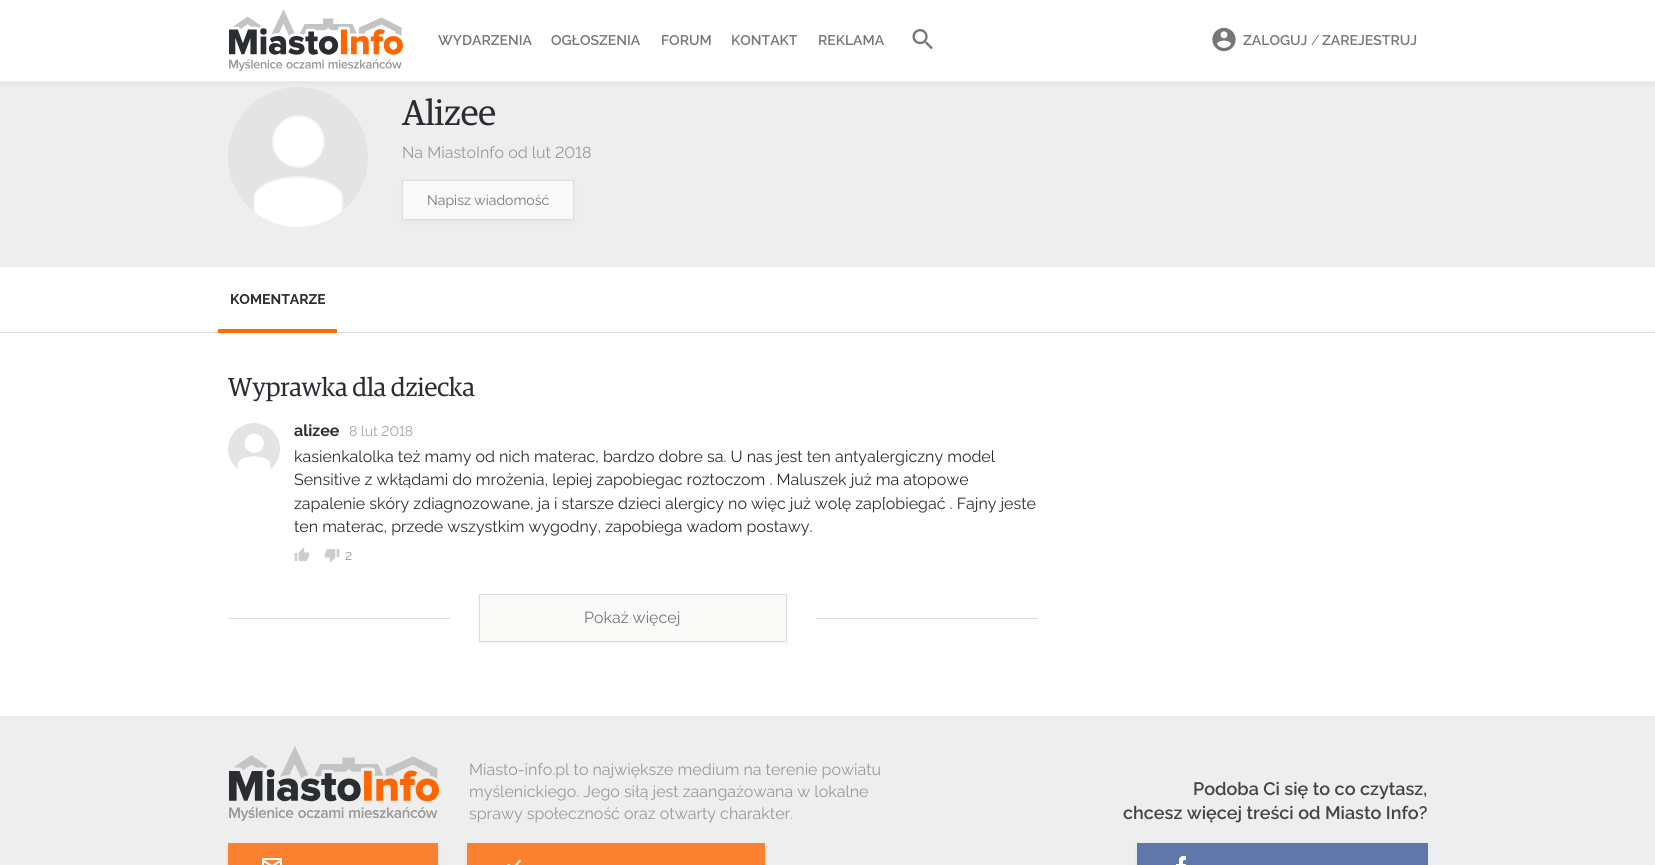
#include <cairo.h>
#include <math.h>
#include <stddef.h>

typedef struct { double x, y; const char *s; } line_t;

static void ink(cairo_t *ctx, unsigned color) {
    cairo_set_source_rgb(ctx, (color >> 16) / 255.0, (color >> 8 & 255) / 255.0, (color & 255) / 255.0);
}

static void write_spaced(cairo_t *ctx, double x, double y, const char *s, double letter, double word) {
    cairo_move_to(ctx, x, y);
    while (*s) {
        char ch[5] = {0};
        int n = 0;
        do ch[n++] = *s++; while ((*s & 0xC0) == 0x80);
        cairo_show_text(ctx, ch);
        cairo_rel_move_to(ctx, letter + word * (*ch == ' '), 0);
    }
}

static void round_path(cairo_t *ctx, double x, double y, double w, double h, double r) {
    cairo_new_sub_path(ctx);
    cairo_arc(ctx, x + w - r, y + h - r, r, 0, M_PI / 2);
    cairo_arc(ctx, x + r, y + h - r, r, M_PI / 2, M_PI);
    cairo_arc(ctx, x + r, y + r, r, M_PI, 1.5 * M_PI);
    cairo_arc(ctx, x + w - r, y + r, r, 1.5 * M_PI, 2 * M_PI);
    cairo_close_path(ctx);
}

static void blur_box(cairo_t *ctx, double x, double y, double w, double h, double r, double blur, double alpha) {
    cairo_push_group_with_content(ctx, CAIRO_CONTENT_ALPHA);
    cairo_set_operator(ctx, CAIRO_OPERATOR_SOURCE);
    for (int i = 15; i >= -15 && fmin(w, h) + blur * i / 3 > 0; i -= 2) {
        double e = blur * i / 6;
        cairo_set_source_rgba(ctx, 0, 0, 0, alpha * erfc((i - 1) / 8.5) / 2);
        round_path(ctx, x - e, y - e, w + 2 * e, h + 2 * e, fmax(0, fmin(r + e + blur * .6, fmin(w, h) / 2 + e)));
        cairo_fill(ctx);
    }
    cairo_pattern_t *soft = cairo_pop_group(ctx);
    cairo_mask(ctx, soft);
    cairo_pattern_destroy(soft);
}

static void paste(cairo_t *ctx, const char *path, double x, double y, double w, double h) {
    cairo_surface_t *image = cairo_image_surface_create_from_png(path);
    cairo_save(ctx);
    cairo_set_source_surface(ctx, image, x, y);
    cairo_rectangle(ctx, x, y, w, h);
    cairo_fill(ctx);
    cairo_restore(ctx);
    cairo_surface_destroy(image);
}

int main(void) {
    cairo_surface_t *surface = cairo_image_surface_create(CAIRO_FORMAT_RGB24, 1655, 865);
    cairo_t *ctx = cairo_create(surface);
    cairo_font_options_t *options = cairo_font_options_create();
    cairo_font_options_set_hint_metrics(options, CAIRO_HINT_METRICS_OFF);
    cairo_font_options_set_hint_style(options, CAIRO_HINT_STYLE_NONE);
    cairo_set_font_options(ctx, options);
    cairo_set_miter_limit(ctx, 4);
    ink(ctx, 0xEEEEEE);
    cairo_paint(ctx);
    paste(ctx, "media/4.png", 228, 87, 140, 140);
    ink(ctx, 0x000000);
    blur_box(ctx, 0, 2, 1655, 82, 0, 2.5, 0.05);
    ink(ctx, 0xFFFFFF);
    cairo_rectangle(ctx, 0, 0, 1655, 81);
    cairo_fill(ctx);
    ink(ctx, 0xEEEEEE);
    cairo_rectangle(ctx, 0, 81, 1655, 1);
    cairo_fill(ctx);
    paste(ctx, "media/1.png", 229, 9, 174, 62);
    cairo_select_font_face(ctx, "Raleway SemiBold", CAIRO_FONT_SLANT_NORMAL, CAIRO_FONT_WEIGHT_NORMAL);
    cairo_set_font_size(ctx, 14);
    ink(ctx, 0x777777);
    {
        static const line_t items[] = {
            {438, 45, "WYDARZENIA"},
            {551, 45, "OGŁOSZENIA"},
            {661, 45, "FORUM"},
            {731, 45, "KONTAKT"},
            {818, 45, "REKLAMA"},
        };
        for (size_t i = 0; i < sizeof items / sizeof *items; i++) {
            cairo_move_to(ctx, items[i].x, items[i].y);
            cairo_show_text(ctx, items[i].s);
        }
    }
    paste(ctx, "media/2.png", 912, 29, 21, 21);
    paste(ctx, "media/3.png", 1212, 27, 24, 25);
    cairo_move_to(ctx, 1243, 45);
    cairo_show_text(ctx, "ZALOGUJ");
    cairo_select_font_face(ctx, "Raleway", CAIRO_FONT_SLANT_NORMAL, CAIRO_FONT_WEIGHT_NORMAL);
    cairo_move_to(ctx, 1311, 45);
    cairo_show_text(ctx, "/");
    cairo_select_font_face(ctx, "Raleway SemiBold", CAIRO_FONT_SLANT_NORMAL, CAIRO_FONT_WEIGHT_NORMAL);
    cairo_move_to(ctx, 1322, 45);
    cairo_show_text(ctx, "ZAREJESTRUJ");
    cairo_select_font_face(ctx, "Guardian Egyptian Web", CAIRO_FONT_SLANT_NORMAL, CAIRO_FONT_WEIGHT_NORMAL);
    cairo_set_font_size(ctx, 36);
    ink(ctx, 0x2A2D32);
    write_spaced(ctx, 402, 125, "Alizee", -0.25, 0);
    cairo_select_font_face(ctx, "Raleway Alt", CAIRO_FONT_SLANT_NORMAL, CAIRO_FONT_WEIGHT_NORMAL);
    cairo_set_font_size(ctx, 16);
    ink(ctx, 0x999999);
    cairo_move_to(ctx, 402, 158);
    cairo_show_text(ctx, "Na MiastoInfo od lut 2018");
    ink(ctx, 0x000000);
    blur_box(ctx, 402, 182, 172, 40, 0, 2.5, 0.05);
    ink(ctx, 0xF9F9F8);
    cairo_rectangle(ctx, 402.5, 180.5, 171, 39);
    cairo_fill_preserve(ctx);
    ink(ctx, 0xDDDDDD);
    cairo_set_line_width(ctx, 1);
    cairo_stroke(ctx);
    cairo_select_font_face(ctx, "Raleway", CAIRO_FONT_SLANT_NORMAL, CAIRO_FONT_WEIGHT_NORMAL);
    cairo_set_font_size(ctx, 14);
    ink(ctx, 0x777777);
    cairo_move_to(ctx, 427, 205);
    cairo_show_text(ctx, "Napisz wiadomość");
    ink(ctx, 0xFFFFFF);
    cairo_rectangle(ctx, 0, 267, 1655, 65);
    cairo_fill(ctx);
    ink(ctx, 0xDDDDDD);
    cairo_rectangle(ctx, 0, 332, 1655, 1);
    cairo_fill(ctx);
    cairo_select_font_face(ctx, "Raleway", CAIRO_FONT_SLANT_NORMAL, CAIRO_FONT_WEIGHT_BOLD);
    ink(ctx, 0x2A2D32);
    cairo_move_to(ctx, 230, 304);
    cairo_show_text(ctx, "KOMENTARZE");
    ink(ctx, 0xFF6D00);
    cairo_rectangle(ctx, 218, 329, 119, 4);
    cairo_fill(ctx);
    ink(ctx, 0xFFFFFF);
    cairo_rectangle(ctx, 0, 333, 1655, 383);
    cairo_fill(ctx);
    cairo_select_font_face(ctx, "Guardian Egyptian Web", CAIRO_FONT_SLANT_NORMAL, CAIRO_FONT_WEIGHT_NORMAL);
    cairo_set_font_size(ctx, 26);
    ink(ctx, 0x2A2D32);
    write_spaced(ctx, 228, 396, "Wyprawka dla dziecka", -0.1, 0);
    paste(ctx, "media/5.png", 228, 423, 52, 46);
    cairo_select_font_face(ctx, "Raleway", CAIRO_FONT_SLANT_NORMAL, CAIRO_FONT_WEIGHT_BOLD);
    cairo_set_font_size(ctx, 16);
    cairo_move_to(ctx, 294, 436);
    cairo_show_text(ctx, "alizee");
    cairo_select_font_face(ctx, "Raleway Alt", CAIRO_FONT_SLANT_NORMAL, CAIRO_FONT_WEIGHT_NORMAL);
    cairo_set_font_size(ctx, 14);
    ink(ctx, 0xA3A3A3);
    cairo_move_to(ctx, 349, 436);
    cairo_show_text(ctx, "8 lut 2018");
    cairo_select_font_face(ctx, "Raleway", CAIRO_FONT_SLANT_NORMAL, CAIRO_FONT_WEIGHT_NORMAL);
    cairo_set_font_size(ctx, 16);
    ink(ctx, 0x2A2D32);
    {
        static const line_t items[] = {
            {294, 462, "kasienkalolka też mamy od nich materac, bardzo dobre sa. U nas jest ten antyalergiczny model"},
            {294, 485, "Sensitive z wkłądami do mrożenia, lepiej zapobiegac roztoczom . Maluszek już ma atopowe"},
            {294, 509, "zapalenie skóry zdiagnozowane, ja i starsze dzieci alergicy no więc już wolę zap[obiegać . Fajny jeste"},
            {294, 532, "ten materac, przede wszystkim wygodny, zapobiega wadom postawy."},
        };
        for (size_t i = 0; i < sizeof items / sizeof *items; i++) {
            cairo_move_to(ctx, items[i].x, items[i].y);
            cairo_show_text(ctx, items[i].s);
        }
    }
    paste(ctx, "media/6.png", 294, 547, 16, 14);
    paste(ctx, "media/7.png", 324, 549, 16, 14);
    cairo_set_font_size(ctx, 14);
    ink(ctx, 0x999999);
    cairo_move_to(ctx, 345, 560);
    cairo_show_text(ctx, "2");
    ink(ctx, 0xDDDDDD);
    cairo_rectangle(ctx, 228, 618, 810, 1);
    cairo_fill(ctx);
    ink(ctx, 0xFFFFFF);
    cairo_rectangle(ctx, 450, 618, 366, 1);
    cairo_fill(ctx);
    ink(ctx, 0x000000);
    blur_box(ctx, 479, 596, 308, 48, 0, 2.5, 0.05);
    ink(ctx, 0xF9F9F8);
    cairo_rectangle(ctx, 479.5, 594.5, 307, 47);
    cairo_fill_preserve(ctx);
    ink(ctx, 0xDDDDDD);
    cairo_stroke(ctx);
    cairo_set_font_size(ctx, 16);
    ink(ctx, 0x777777);
    cairo_move_to(ctx, 584, 623);
    cairo_show_text(ctx, "Pokaż więcej");
    paste(ctx, "media/8.png", 229, 746, 210, 75);
    ink(ctx, 0x999999);
    {
        static const line_t items[] = {
            {469, 775, "Miasto-info.pl to największe medium na terenie powiatu"},
            {469, 797, "myślenickiego. Jego siłą jest zaangażowana w lokalne"},
            {469, 819, "sprawy społeczność oraz otwarty charakter."},
        };
        for (size_t i = 0; i < sizeof items / sizeof *items; i++) {
            cairo_move_to(ctx, items[i].x, items[i].y);
            cairo_show_text(ctx, items[i].s);
        }
    }
    cairo_select_font_face(ctx, "Raleway SemiBold", CAIRO_FONT_SLANT_NORMAL, CAIRO_FONT_WEIGHT_NORMAL);
    cairo_set_font_size(ctx, 18);
    ink(ctx, 0x444444);
    cairo_move_to(ctx, 1193, 795);
    cairo_show_text(ctx, "Podoba Ci się to co czytasz,");
    cairo_move_to(ctx, 1123, 819);
    cairo_show_text(ctx, "chcesz więcej treści od Miasto Info?");
    ink(ctx, 0x000000);
    blur_box(ctx, 228, 845, 210, 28, 0, 2.5, 0.05);
    ink(ctx, 0xFB802F);
    cairo_rectangle(ctx, 228, 843, 210, 22);
    cairo_fill(ctx);
    paste(ctx, "media/9.png", 262, 858, 20, 7);
    ink(ctx, 0x000000);
    blur_box(ctx, 467, 845, 298, 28, 0, 2.5, 0.05);
    ink(ctx, 0xFB802F);
    cairo_rectangle(ctx, 467, 843, 298, 22);
    cairo_fill(ctx);
    paste(ctx, "media/10.png", 507, 859, 14, 6);
    ink(ctx, 0x000000);
    blur_box(ctx, 1137, 845, 291, 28, 0, 2.5, 0.05);
    ink(ctx, 0x5F77A9);
    cairo_rectangle(ctx, 1137, 843, 291, 22);
    cairo_fill(ctx);
    paste(ctx, "media/11.png", 1176, 856, 10, 9);
    cairo_surface_write_to_png(surface, "image.png");
    cairo_font_options_destroy(options);
    cairo_destroy(ctx);
    cairo_surface_destroy(surface);
    return 0;
}
